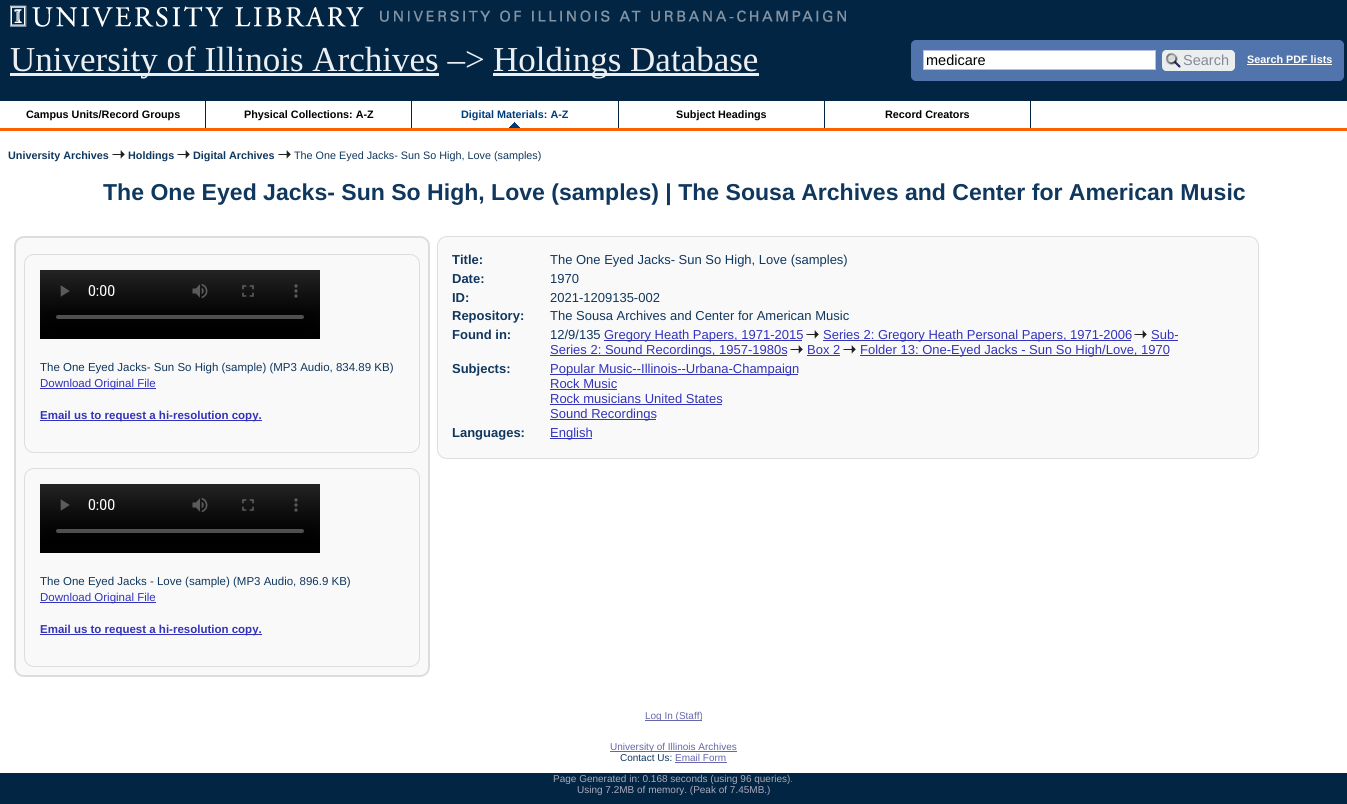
#include <cairo.h>
#include <math.h>
#include <stddef.h>


static void ink(cairo_t *ctx, unsigned color) {
    cairo_set_source_rgb(ctx, (color >> 16) / 255.0, (color >> 8 & 255) / 255.0, (color & 255) / 255.0);
}

static void round_path(cairo_t *ctx, double x, double y, double w, double h, double r) {
    cairo_new_sub_path(ctx);
    cairo_arc(ctx, x + w - r, y + h - r, r, 0, M_PI / 2);
    cairo_arc(ctx, x + r, y + h - r, r, M_PI / 2, M_PI);
    cairo_arc(ctx, x + r, y + r, r, M_PI, 1.5 * M_PI);
    cairo_arc(ctx, x + w - r, y + r, r, 1.5 * M_PI, 2 * M_PI);
    cairo_close_path(ctx);
}

static void paste(cairo_t *ctx, const char *path, double x, double y, double w, double h) {
    cairo_surface_t *image = cairo_image_surface_create_from_png(path);
    cairo_save(ctx);
    cairo_set_source_surface(ctx, image, x, y);
    cairo_rectangle(ctx, x, y, w, h);
    cairo_fill(ctx);
    cairo_restore(ctx);
    cairo_surface_destroy(image);
}

int main(void) {
    cairo_surface_t *surface = cairo_image_surface_create(CAIRO_FORMAT_RGB24, 1347, 804);
    cairo_t *ctx = cairo_create(surface);
    cairo_font_options_t *options = cairo_font_options_create();
    cairo_font_options_set_hint_metrics(options, CAIRO_HINT_METRICS_OFF);
    cairo_font_options_set_hint_style(options, CAIRO_HINT_STYLE_NONE);
    cairo_set_font_options(ctx, options);
    cairo_set_miter_limit(ctx, 4);
    ink(ctx, 0xFFFFFF);
    cairo_paint(ctx);
    ink(ctx, 0x022544);
    cairo_rectangle(ctx, 0, 0, 1347, 101);
    cairo_fill(ctx);
    paste(ctx, "media/1.png", 10, 5, 836, 22);
    ink(ctx, 0xFA6300);
    cairo_rectangle(ctx, 0, 128, 1347, 3);
    cairo_fill(ctx);
    ink(ctx, 0xECEFF1);
    cairo_rectangle(ctx, 10, 73, 429, 3);
    cairo_fill(ctx);
    cairo_select_font_face(ctx, "Liberation Serif", CAIRO_FONT_SLANT_NORMAL, CAIRO_FONT_WEIGHT_NORMAL);
    cairo_set_font_size(ctx, 35);
    cairo_move_to(ctx, 10, 71);
    cairo_show_text(ctx, "University of Illinois Archives –>");
    cairo_rectangle(ctx, 493, 73, 266, 3);
    cairo_fill(ctx);
    cairo_move_to(ctx, 493, 71);
    cairo_show_text(ctx, "Holdings Database");
    ink(ctx, 0x5274AC);
    round_path(ctx, 911.5, 40.5, 432, 40, 4.5);
    cairo_fill_preserve(ctx);
    cairo_set_line_width(ctx, 1);
    cairo_stroke(ctx);
    ink(ctx, 0xFFFFFF);
    cairo_rectangle(ctx, 923.5, 50.5, 232, 19);
    cairo_fill_preserve(ctx);
    ink(ctx, 0xBBBBEE);
    cairo_stroke(ctx);
    cairo_select_font_face(ctx, "Liberation Sans", CAIRO_FONT_SLANT_NORMAL, CAIRO_FONT_WEIGHT_NORMAL);
    cairo_set_font_size(ctx, 14.5);
    ink(ctx, 0x000000);
    cairo_move_to(ctx, 926, 65);
    cairo_show_text(ctx, "medicare");
    ink(ctx, 0xEBEEEF);
    round_path(ctx, 1162, 50, 73, 21, 5);
    cairo_fill(ctx);
    paste(ctx, "media/2.png", 1165, 52, 16, 16);
    cairo_set_fill_rule(ctx, CAIRO_FILL_RULE_EVEN_ODD);
    cairo_new_path(ctx);
    cairo_move_to(ctx, 1167, 50);
    cairo_line_to(ctx, 1230, 50);
    cairo_curve_to(ctx, 1233, 50, 1235, 52, 1235, 55);
    cairo_line_to(ctx, 1235, 66);
    cairo_curve_to(ctx, 1235, 69, 1233, 71, 1230, 71);
    cairo_line_to(ctx, 1167, 71);
    cairo_curve_to(ctx, 1164, 71, 1162, 69, 1162, 66);
    cairo_line_to(ctx, 1162, 55);
    cairo_curve_to(ctx, 1162, 52, 1164, 50, 1167, 50);
    cairo_close_path(ctx);
    cairo_move_to(ctx, 1167, 51);
    cairo_line_to(ctx, 1230, 51);
    cairo_curve_to(ctx, 1232, 51, 1234, 53, 1234, 55);
    cairo_line_to(ctx, 1234, 66);
    cairo_curve_to(ctx, 1234, 68, 1232, 70, 1230, 70);
    cairo_line_to(ctx, 1167, 70);
    cairo_curve_to(ctx, 1164, 70, 1162, 68, 1162, 66);
    cairo_line_to(ctx, 1162, 55);
    cairo_curve_to(ctx, 1162, 53, 1164, 51, 1167, 51);
    cairo_close_path(ctx);
    cairo_fill(ctx);
    ink(ctx, 0x888899);
    cairo_move_to(ctx, 1183, 65);
    cairo_show_text(ctx, "Search");
    cairo_select_font_face(ctx, "Liberation Sans", CAIRO_FONT_SLANT_NORMAL, CAIRO_FONT_WEIGHT_BOLD);
    cairo_set_font_size(ctx, 10.8);
    ink(ctx, 0xFFFFFF);
    cairo_move_to(ctx, 1247, 63);
    cairo_show_text(ctx, "Search PDF lists");
    cairo_rectangle(ctx, 1247, 64, 85, 1);
    cairo_fill(ctx);
    ink(ctx, 0x022544);
    cairo_rectangle(ctx, 205, 101, 1, 27);
    cairo_fill(ctx);
    ink(ctx, 0x000000);
    cairo_move_to(ctx, 26, 118);
    cairo_show_text(ctx, "Campus Units/Record Groups");
    ink(ctx, 0x022544);
    cairo_rectangle(ctx, 411, 101, 1, 27);
    cairo_fill(ctx);
    ink(ctx, 0x000000);
    cairo_move_to(ctx, 244, 118);
    cairo_show_text(ctx, "Physical Collections: A-Z");
    paste(ctx, "media/3.png", 509, 122, 11, 6);
    ink(ctx, 0x022544);
    cairo_rectangle(ctx, 618, 101, 1, 27);
    cairo_fill(ctx);
    ink(ctx, 0x003C7B);
    cairo_move_to(ctx, 461, 118);
    cairo_show_text(ctx, "Digital Materials: A-Z");
    ink(ctx, 0x022544);
    cairo_rectangle(ctx, 824, 101, 1, 27);
    cairo_fill(ctx);
    ink(ctx, 0x000000);
    cairo_move_to(ctx, 676, 118);
    cairo_show_text(ctx, "Subject Headings");
    ink(ctx, 0x022544);
    cairo_rectangle(ctx, 1030, 101, 1, 27);
    cairo_fill(ctx);
    ink(ctx, 0x000000);
    cairo_move_to(ctx, 885, 118);
    cairo_show_text(ctx, "Record Creators");
    ink(ctx, 0x10375D);
    cairo_move_to(ctx, 8, 159);
    cairo_show_text(ctx, "University Archives");
    paste(ctx, "media/4.png", 112, 150, 13, 9);
    cairo_move_to(ctx, 128, 159);
    cairo_show_text(ctx, "Holdings");
    paste(ctx, "media/4.png", 177, 150, 13, 9);
    cairo_move_to(ctx, 193, 159);
    cairo_show_text(ctx, "Digital Archives");
    paste(ctx, "media/4.png", 278, 150, 13, 9);
    cairo_select_font_face(ctx, "Liberation Sans", CAIRO_FONT_SLANT_NORMAL, CAIRO_FONT_WEIGHT_NORMAL);
    cairo_move_to(ctx, 294, 159);
    cairo_show_text(ctx, "The One Eyed Jacks- Sun So High, Love (samples)");
    cairo_select_font_face(ctx, "Liberation Sans", CAIRO_FONT_SLANT_NORMAL, CAIRO_FONT_WEIGHT_BOLD);
    cairo_set_font_size(ctx, 23.05);
    cairo_move_to(ctx, 103, 200);
    cairo_show_text(ctx, "The One Eyed Jacks- Sun So High, Love (samples) | The Sousa Archives and Center for American Music");
    ink(ctx, 0xF9F9FA);
    round_path(ctx, 15, 237, 414, 439, 9);
    cairo_fill_preserve(ctx);
    ink(ctx, 0xDDDDDD);
    cairo_set_line_width(ctx, 2);
    cairo_stroke(ctx);
    round_path(ctx, 24.5, 254.5, 395, 198, 9.5);
    cairo_set_line_width(ctx, 1);
    cairo_stroke(ctx);
    paste(ctx, "media/5.png", 40, 270, 280, 69);
    cairo_select_font_face(ctx, "Liberation Sans", CAIRO_FONT_SLANT_NORMAL, CAIRO_FONT_WEIGHT_NORMAL);
    cairo_set_font_size(ctx, 11.5);
    ink(ctx, 0x10375D);
    cairo_move_to(ctx, 40, 371);
    cairo_show_text(ctx, "The One Eyed Jacks- Sun So High (sample) (MP3 Audio, 834.89 KB)");
    ink(ctx, 0x3333BB);
    cairo_rectangle(ctx, 40, 388, 116, 1);
    cairo_fill(ctx);
    cairo_move_to(ctx, 40, 387);
    cairo_show_text(ctx, "Download Original File");
    cairo_rectangle(ctx, 40, 420, 222, 1);
    cairo_fill(ctx);
    cairo_select_font_face(ctx, "Liberation Sans", CAIRO_FONT_SLANT_NORMAL, CAIRO_FONT_WEIGHT_BOLD);
    cairo_move_to(ctx, 40, 419);
    cairo_show_text(ctx, "Email us to request a hi-resolution copy.");
    round_path(ctx, 24.5, 468.5, 395, 198, 9.5);
    ink(ctx, 0xDDDDDD);
    cairo_stroke(ctx);
    paste(ctx, "media/6.png", 40, 484, 280, 69);
    cairo_select_font_face(ctx, "Liberation Sans", CAIRO_FONT_SLANT_NORMAL, CAIRO_FONT_WEIGHT_NORMAL);
    ink(ctx, 0x10375D);
    cairo_move_to(ctx, 40, 585);
    cairo_show_text(ctx, "The One Eyed Jacks - Love (sample) (MP3 Audio, 896.9 KB)");
    ink(ctx, 0x3333BB);
    cairo_rectangle(ctx, 40, 602, 116, 1);
    cairo_fill(ctx);
    cairo_move_to(ctx, 40, 601);
    cairo_show_text(ctx, "Download Original File");
    cairo_rectangle(ctx, 40, 634, 222, 1);
    cairo_fill(ctx);
    cairo_select_font_face(ctx, "Liberation Sans", CAIRO_FONT_SLANT_NORMAL, CAIRO_FONT_WEIGHT_BOLD);
    cairo_move_to(ctx, 40, 633);
    cairo_show_text(ctx, "Email us to request a hi-resolution copy.");
    ink(ctx, 0xF9F9FA);
    round_path(ctx, 437.5, 236.5, 821, 222, 9.5);
    cairo_fill_preserve(ctx);
    ink(ctx, 0xDDDDDD);
    cairo_stroke(ctx);
    cairo_set_font_size(ctx, 13);
    ink(ctx, 0x10375D);
    cairo_move_to(ctx, 452, 264);
    cairo_show_text(ctx, "Title:");
    cairo_select_font_face(ctx, "Liberation Sans", CAIRO_FONT_SLANT_NORMAL, CAIRO_FONT_WEIGHT_NORMAL);
    cairo_move_to(ctx, 550, 264);
    cairo_show_text(ctx, "The One Eyed Jacks- Sun So High, Love (samples)");
    cairo_select_font_face(ctx, "Liberation Sans", CAIRO_FONT_SLANT_NORMAL, CAIRO_FONT_WEIGHT_BOLD);
    cairo_move_to(ctx, 452, 283);
    cairo_show_text(ctx, "Date:");
    cairo_select_font_face(ctx, "Liberation Sans", CAIRO_FONT_SLANT_NORMAL, CAIRO_FONT_WEIGHT_NORMAL);
    cairo_move_to(ctx, 550, 283);
    cairo_show_text(ctx, "1970");
    cairo_select_font_face(ctx, "Liberation Sans", CAIRO_FONT_SLANT_NORMAL, CAIRO_FONT_WEIGHT_BOLD);
    cairo_move_to(ctx, 452, 302);
    cairo_show_text(ctx, "ID:");
    cairo_select_font_face(ctx, "Liberation Sans", CAIRO_FONT_SLANT_NORMAL, CAIRO_FONT_WEIGHT_NORMAL);
    cairo_move_to(ctx, 550, 302);
    cairo_show_text(ctx, "2021-1209135-002");
    cairo_select_font_face(ctx, "Liberation Sans", CAIRO_FONT_SLANT_NORMAL, CAIRO_FONT_WEIGHT_BOLD);
    cairo_move_to(ctx, 452, 320);
    cairo_show_text(ctx, "Repository:");
    cairo_select_font_face(ctx, "Liberation Sans", CAIRO_FONT_SLANT_NORMAL, CAIRO_FONT_WEIGHT_NORMAL);
    cairo_move_to(ctx, 550, 320);
    cairo_show_text(ctx, "The Sousa Archives and Center for American Music");
    cairo_select_font_face(ctx, "Liberation Sans", CAIRO_FONT_SLANT_NORMAL, CAIRO_FONT_WEIGHT_BOLD);
    cairo_move_to(ctx, 452, 339);
    cairo_show_text(ctx, "Found in:");
    cairo_select_font_face(ctx, "Liberation Sans", CAIRO_FONT_SLANT_NORMAL, CAIRO_FONT_WEIGHT_NORMAL);
    cairo_move_to(ctx, 550, 339);
    cairo_show_text(ctx, "12/9/135");
    ink(ctx, 0x3333BB);
    cairo_rectangle(ctx, 604, 340, 198, 1);
    cairo_fill(ctx);
    cairo_move_to(ctx, 604, 339);
    cairo_show_text(ctx, "Gregory Heath Papers, 1971-2015");
    paste(ctx, "media/7.png", 806, 330, 13, 9);
    cairo_rectangle(ctx, 823, 340, 308, 1);
    cairo_fill(ctx);
    cairo_move_to(ctx, 823, 339);
    cairo_show_text(ctx, "Series 2: Gregory Heath Personal Papers, 1971-2006");
    paste(ctx, "media/7.png", 1134, 330, 13, 9);
    cairo_move_to(ctx, 1151, 339);
    cairo_show_text(ctx, "Sub-");
    cairo_rectangle(ctx, 1151, 340, 27, 1);
    cairo_fill(ctx);
    cairo_rectangle(ctx, 550, 355, 237, 1);
    cairo_fill(ctx);
    cairo_move_to(ctx, 550, 354);
    cairo_show_text(ctx, "Series 2: Sound Recordings, 1957-1980s");
    paste(ctx, "media/7.png", 790, 345, 13, 9);
    cairo_move_to(ctx, 807, 354);
    cairo_show_text(ctx, "Box 2");
    cairo_rectangle(ctx, 807, 355, 33, 1);
    cairo_fill(ctx);
    paste(ctx, "media/7.png", 843, 345, 13, 9);
    cairo_rectangle(ctx, 860, 355, 309, 1);
    cairo_fill(ctx);
    cairo_move_to(ctx, 860, 354);
    cairo_show_text(ctx, "Folder 13: One-Eyed Jacks - Sun So High/Love, 1970");
    cairo_select_font_face(ctx, "Liberation Sans", CAIRO_FONT_SLANT_NORMAL, CAIRO_FONT_WEIGHT_BOLD);
    ink(ctx, 0x10375D);
    cairo_move_to(ctx, 452, 373);
    cairo_show_text(ctx, "Subjects:");
    ink(ctx, 0x3333BB);
    cairo_rectangle(ctx, 550, 374, 248, 1);
    cairo_fill(ctx);
    cairo_select_font_face(ctx, "Liberation Sans", CAIRO_FONT_SLANT_NORMAL, CAIRO_FONT_WEIGHT_NORMAL);
    cairo_move_to(ctx, 550, 373);
    cairo_show_text(ctx, "Popular Music--Illinois--Urbana-Champaign");
    cairo_move_to(ctx, 550, 388);
    cairo_show_text(ctx, "Rock Music");
    cairo_rectangle(ctx, 550, 389, 67, 1);
    cairo_fill(ctx);
    cairo_move_to(ctx, 550, 403);
    cairo_show_text(ctx, "Rock musicians United States");
    cairo_rectangle(ctx, 550, 404, 172, 1);
    cairo_fill(ctx);
    cairo_rectangle(ctx, 550, 419, 106, 1);
    cairo_fill(ctx);
    cairo_move_to(ctx, 550, 418);
    cairo_show_text(ctx, "Sound Recordings");
    cairo_select_font_face(ctx, "Liberation Sans", CAIRO_FONT_SLANT_NORMAL, CAIRO_FONT_WEIGHT_BOLD);
    ink(ctx, 0x10375D);
    cairo_move_to(ctx, 452, 437);
    cairo_show_text(ctx, "Languages:");
    ink(ctx, 0x3333BB);
    cairo_rectangle(ctx, 550, 438, 42, 1);
    cairo_fill(ctx);
    cairo_select_font_face(ctx, "Liberation Sans", CAIRO_FONT_SLANT_NORMAL, CAIRO_FONT_WEIGHT_NORMAL);
    cairo_move_to(ctx, 550, 437);
    cairo_show_text(ctx, "English");
    ink(ctx, 0x6666AA);
    cairo_rectangle(ctx, 645, 720, 57, 1);
    cairo_fill(ctx);
    cairo_set_font_size(ctx, 10);
    cairo_move_to(ctx, 645, 719);
    cairo_show_text(ctx, "Log In (Staff)");
    cairo_rectangle(ctx, 610, 751, 127, 1);
    cairo_fill(ctx);
    cairo_move_to(ctx, 610, 750);
    cairo_show_text(ctx, "University of Illinois Archives");
    ink(ctx, 0x10375D);
    cairo_move_to(ctx, 620, 761);
    cairo_show_text(ctx, "Contact Us:");
    ink(ctx, 0x6666AA);
    cairo_move_to(ctx, 675, 761);
    cairo_show_text(ctx, "Email Form");
    cairo_rectangle(ctx, 675, 762, 52, 1);
    cairo_fill(ctx);
    ink(ctx, 0x022544);
    cairo_rectangle(ctx, 0, 773, 1347, 31);
    cairo_fill(ctx);
    ink(ctx, 0xAAAABB);
    cairo_move_to(ctx, 553, 782);
    cairo_show_text(ctx, "Page Generated in: 0.168 seconds (using 96 queries).");
    cairo_move_to(ctx, 577, 793);
    cairo_show_text(ctx, "Using 7.2MB of memory. (Peak of 7.45MB.)");
    cairo_surface_write_to_png(surface, "image.png");
    cairo_font_options_destroy(options);
    cairo_destroy(ctx);
    cairo_surface_destroy(surface);
    return 0;
}
